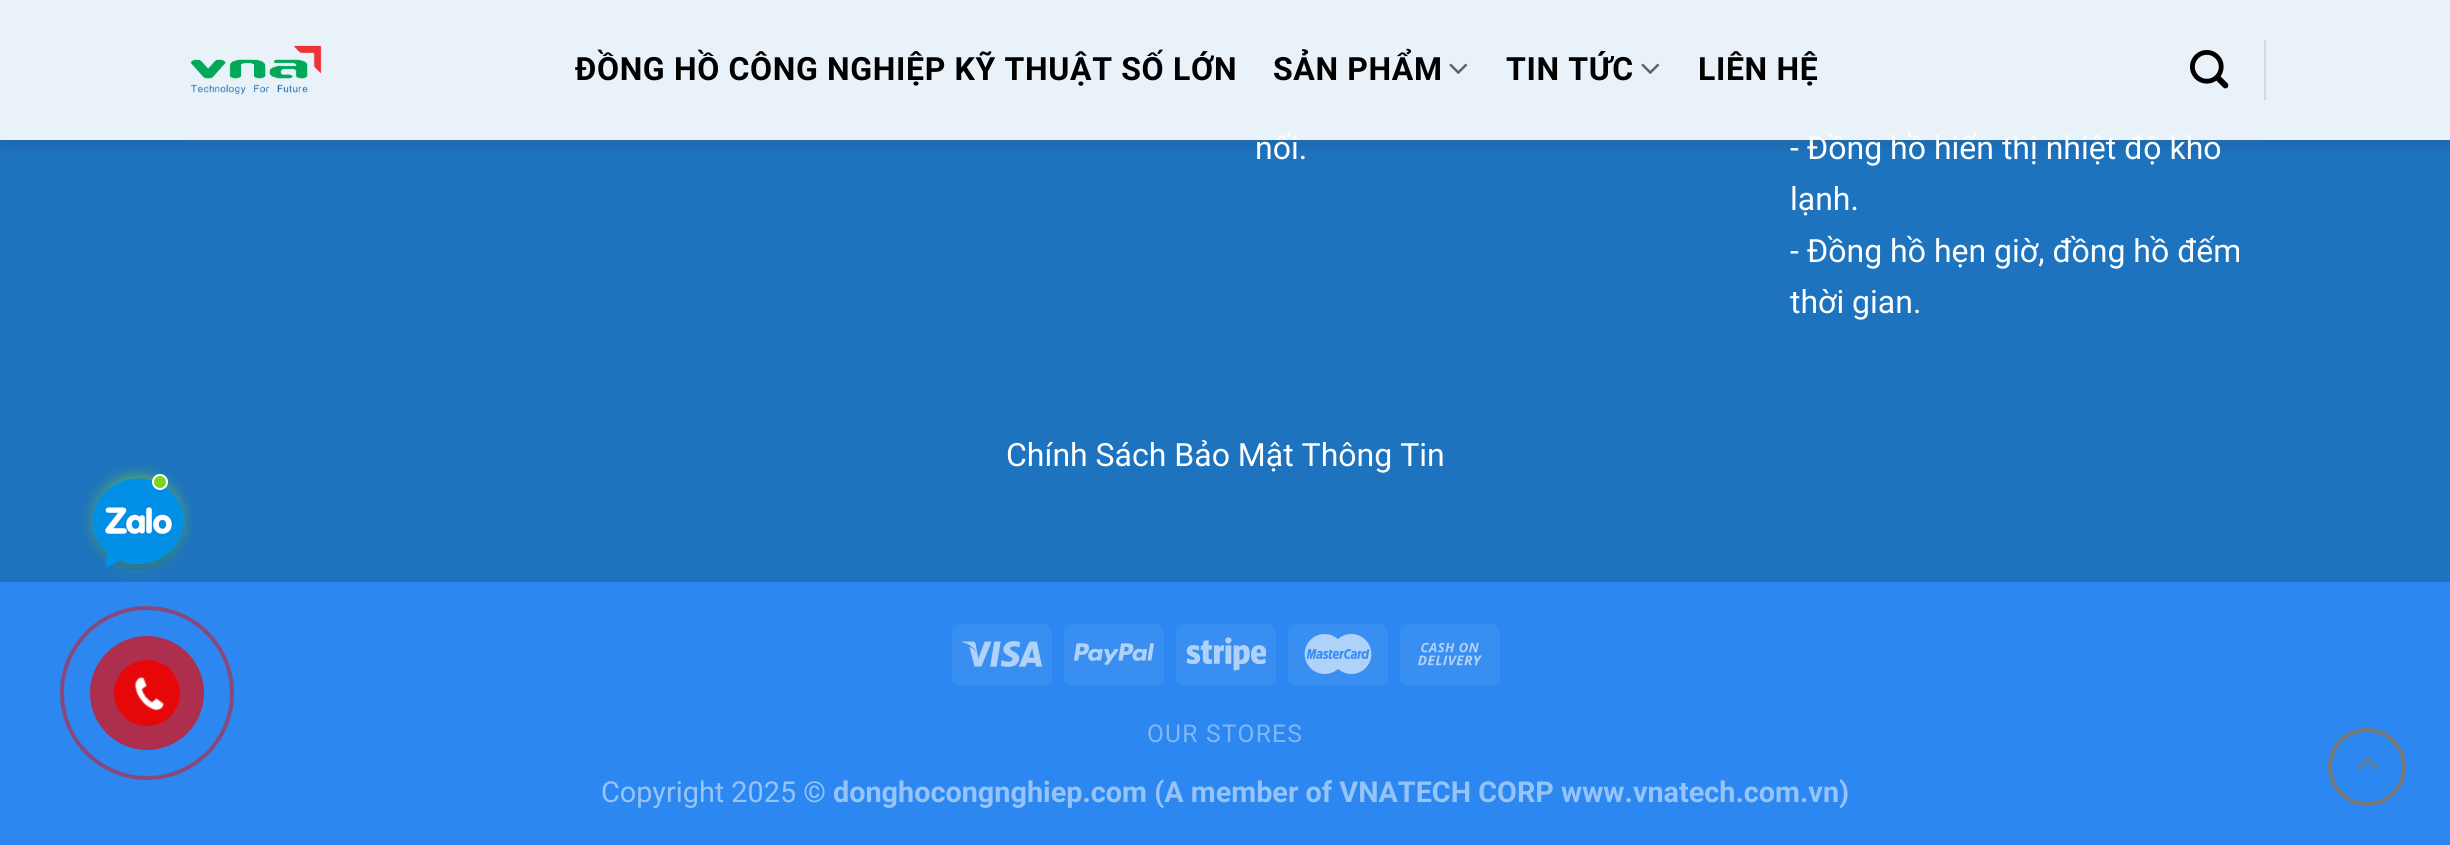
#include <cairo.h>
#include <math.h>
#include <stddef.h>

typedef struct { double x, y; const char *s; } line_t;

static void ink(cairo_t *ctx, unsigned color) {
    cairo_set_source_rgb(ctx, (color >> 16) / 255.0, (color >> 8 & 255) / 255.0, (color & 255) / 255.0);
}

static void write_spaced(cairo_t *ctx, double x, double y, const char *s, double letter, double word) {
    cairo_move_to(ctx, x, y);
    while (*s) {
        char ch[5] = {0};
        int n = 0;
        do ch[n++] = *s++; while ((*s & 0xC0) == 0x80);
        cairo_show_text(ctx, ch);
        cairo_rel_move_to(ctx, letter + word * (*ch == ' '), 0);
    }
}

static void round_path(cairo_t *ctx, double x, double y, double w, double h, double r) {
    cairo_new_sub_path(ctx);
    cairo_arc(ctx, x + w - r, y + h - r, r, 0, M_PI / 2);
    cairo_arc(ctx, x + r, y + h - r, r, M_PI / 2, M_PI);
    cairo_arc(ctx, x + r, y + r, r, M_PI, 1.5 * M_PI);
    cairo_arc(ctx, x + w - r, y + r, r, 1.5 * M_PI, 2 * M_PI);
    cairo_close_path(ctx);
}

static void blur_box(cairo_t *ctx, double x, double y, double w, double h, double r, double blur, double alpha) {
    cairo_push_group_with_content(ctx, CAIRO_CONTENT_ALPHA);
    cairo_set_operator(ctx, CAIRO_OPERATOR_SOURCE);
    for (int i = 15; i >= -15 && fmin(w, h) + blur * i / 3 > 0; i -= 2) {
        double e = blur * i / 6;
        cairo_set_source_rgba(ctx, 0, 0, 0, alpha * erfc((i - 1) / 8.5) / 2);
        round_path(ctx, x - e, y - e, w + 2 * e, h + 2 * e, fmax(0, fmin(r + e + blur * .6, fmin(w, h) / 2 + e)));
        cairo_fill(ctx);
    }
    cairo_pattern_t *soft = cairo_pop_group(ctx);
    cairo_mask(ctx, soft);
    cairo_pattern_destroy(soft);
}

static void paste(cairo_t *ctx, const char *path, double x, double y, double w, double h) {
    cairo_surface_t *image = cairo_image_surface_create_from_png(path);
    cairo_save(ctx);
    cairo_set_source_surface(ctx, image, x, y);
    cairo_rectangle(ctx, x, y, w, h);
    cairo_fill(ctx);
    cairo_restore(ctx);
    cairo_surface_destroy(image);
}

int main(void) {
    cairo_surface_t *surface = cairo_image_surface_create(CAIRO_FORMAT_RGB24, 2450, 845);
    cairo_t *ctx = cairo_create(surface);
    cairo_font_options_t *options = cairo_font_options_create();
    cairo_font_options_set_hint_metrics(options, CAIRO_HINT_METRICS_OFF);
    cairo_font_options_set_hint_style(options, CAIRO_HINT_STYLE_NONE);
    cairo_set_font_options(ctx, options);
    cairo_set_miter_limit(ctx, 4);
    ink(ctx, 0x2C87F0);
    cairo_paint(ctx);
    ink(ctx, 0x1E73BE);
    cairo_rectangle(ctx, 0, 0, 2450, 582);
    cairo_fill(ctx);
    ink(ctx, 0x7ED321);
    blur_box(ctx, 98, 480, 80, 80, 40, 8, 1);
    paste(ctx, "media/1.png", 92, 478, 92, 93);
    ink(ctx, 0x7ED321);
    cairo_arc(ctx, 160, 482, 7, 0, 2 * M_PI);
    cairo_fill_preserve(ctx);
    ink(ctx, 0xFFFFFF);
    cairo_stroke(ctx);
    cairo_save(ctx);
    cairo_rectangle(ctx, 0, 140, 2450, 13);
    cairo_clip(ctx);
    ink(ctx, 0x000000);
    blur_box(ctx, 2, 2, 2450, 140, 0, 10, 0.15);
    cairo_restore(ctx);
    cairo_select_font_face(ctx, "Roboto", CAIRO_FONT_SLANT_NORMAL, CAIRO_FONT_WEIGHT_NORMAL);
    cairo_set_font_size(ctx, 32);
    cairo_move_to(ctx, 1255, 159);
    cairo_show_text(ctx, "nối.");
    cairo_move_to(ctx, 1790, 159);
    cairo_show_text(ctx, "- Đồng hồ hiển thị nhiệt độ kho");
    cairo_set_source_rgba(ctx, 1, 1, 1, 0.9);
    cairo_rectangle(ctx, 0, 0, 2450, 140);
    cairo_fill(ctx);
    paste(ctx, "media/2.png", 190, 45, 132, 50);
    cairo_select_font_face(ctx, "Roboto", CAIRO_FONT_SLANT_NORMAL, CAIRO_FONT_WEIGHT_BOLD);
    ink(ctx, 0x000000);
    write_spaced(ctx, 575, 80, "ĐỒNG HỒ CÔNG NGHIỆP KỸ THUẬT SỐ LỚN", 0.65, 0);
    write_spaced(ctx, 1273, 80, "SẢN PHẨM", 0.65, 0);
    paste(ctx, "media/3.png", 1449, 63, 19, 11);
    write_spaced(ctx, 1506, 80, "TIN TỨC", 0.65, 0);
    paste(ctx, "media/3.png", 1641, 63, 19, 11);
    write_spaced(ctx, 1698, 80, "LIÊN HỆ", 0.65, 0);
    paste(ctx, "media/4.png", 2190, 50, 39, 39);
    ink(ctx, 0xD1D9E0);
    cairo_rectangle(ctx, 2264, 40, 2, 60);
    cairo_fill(ctx);
    cairo_set_source_rgba(ctx, 0.467, 0.467, 0.467, 0.1);
    cairo_rectangle(ctx, 186, 140, 2080, 2);
    cairo_fill(ctx);
    cairo_select_font_face(ctx, "Roboto", CAIRO_FONT_SLANT_NORMAL, CAIRO_FONT_WEIGHT_NORMAL);
    ink(ctx, 0xFFFFFF);
    {
        static const line_t items[] = {
            {1790, 210, "lạnh."},
            {1790, 262, "- Đồng hồ hẹn giờ, đồng hồ đếm"},
            {1790, 313, "thời gian."},
            {1006, 466, "Chính Sách Bảo Mật Thông Tin"},
        };
        for (size_t i = 0; i < sizeof items / sizeof *items; i++) {
            cairo_move_to(ctx, items[i].x, items[i].y);
            cairo_show_text(ctx, items[i].s);
        }
    }
    ink(ctx, 0x398EF1);
    round_path(ctx, 952, 624, 100, 62, 10);
    cairo_fill(ctx);
    paste(ctx, "media/5.png", 962, 641, 80, 26);
    round_path(ctx, 1064, 624, 100, 62, 10);
    cairo_fill(ctx);
    paste(ctx, "media/6.png", 1074, 643, 80, 22);
    round_path(ctx, 1176, 624, 100, 62, 10);
    cairo_fill(ctx);
    paste(ctx, "media/7.png", 1186, 637, 80, 34);
    round_path(ctx, 1288, 624, 100, 62, 10);
    cairo_fill(ctx);
    paste(ctx, "media/8.png", 1304, 634, 68, 40);
    round_path(ctx, 1400, 624, 100, 62, 10);
    cairo_fill(ctx);
    paste(ctx, "media/9.png", 1418, 642, 64, 24);
    cairo_set_font_size(ctx, 24.5);
    ink(ctx, 0x81B7F6);
    write_spaced(ctx, 1147, 742, "OUR STORES", 1.25, 0);
    cairo_set_font_size(ctx, 28.8);
    ink(ctx, 0x96C3F8);
    cairo_move_to(ctx, 601, 802);
    cairo_show_text(ctx, "Copyright 2025 ©");
    cairo_select_font_face(ctx, "Roboto", CAIRO_FONT_SLANT_NORMAL, CAIRO_FONT_WEIGHT_BOLD);
    cairo_move_to(ctx, 833, 802);
    cairo_show_text(ctx, "donghocongnghiep.com (A member of VNATECH CORP www.vnatech.com.vn)");
    cairo_new_path(ctx);
    cairo_arc(ctx, 2367, 767, 37, 0, 2 * M_PI);
    ink(ctx, 0x777777);
    cairo_set_line_width(ctx, 4);
    cairo_stroke(ctx);
    paste(ctx, "media/10.png", 2357, 757, 22, 13);
    cairo_arc(ctx, 147, 693, 85, 0, 2 * M_PI);
    ink(ctx, 0x89487C);
    cairo_stroke(ctx);
    ink(ctx, 0xAE2E4E);
    cairo_arc(ctx, 147, 693, 57, 0, 2 * M_PI);
    cairo_fill(ctx);
    ink(ctx, 0xE60808);
    cairo_arc(ctx, 147, 693, 33, 0, 2 * M_PI);
    cairo_fill(ctx);
    paste(ctx, "media/11.png", 134, 677, 30, 34);
    cairo_surface_write_to_png(surface, "image.png");
    cairo_font_options_destroy(options);
    cairo_destroy(ctx);
    cairo_surface_destroy(surface);
    return 0;
}
